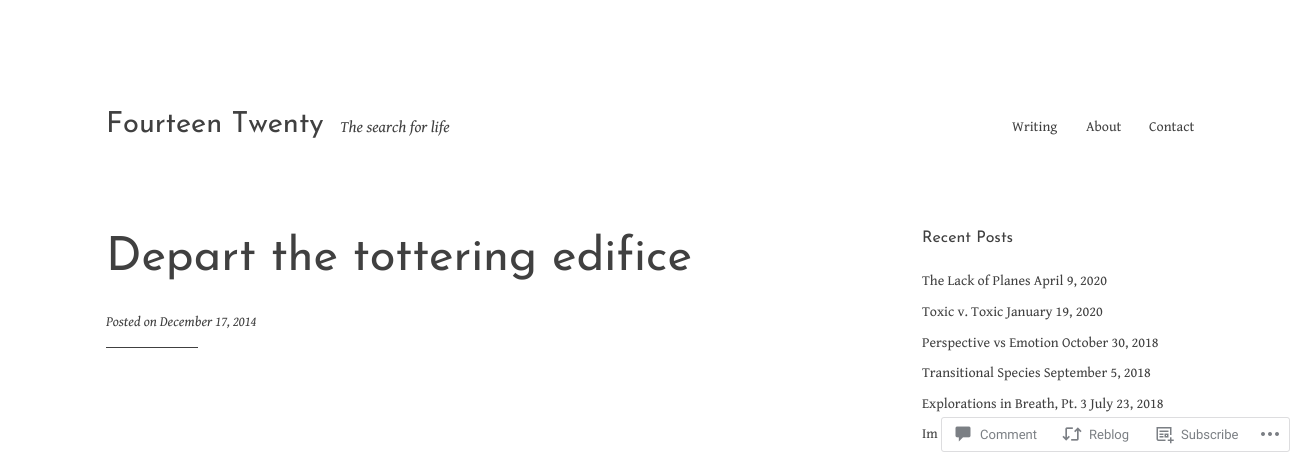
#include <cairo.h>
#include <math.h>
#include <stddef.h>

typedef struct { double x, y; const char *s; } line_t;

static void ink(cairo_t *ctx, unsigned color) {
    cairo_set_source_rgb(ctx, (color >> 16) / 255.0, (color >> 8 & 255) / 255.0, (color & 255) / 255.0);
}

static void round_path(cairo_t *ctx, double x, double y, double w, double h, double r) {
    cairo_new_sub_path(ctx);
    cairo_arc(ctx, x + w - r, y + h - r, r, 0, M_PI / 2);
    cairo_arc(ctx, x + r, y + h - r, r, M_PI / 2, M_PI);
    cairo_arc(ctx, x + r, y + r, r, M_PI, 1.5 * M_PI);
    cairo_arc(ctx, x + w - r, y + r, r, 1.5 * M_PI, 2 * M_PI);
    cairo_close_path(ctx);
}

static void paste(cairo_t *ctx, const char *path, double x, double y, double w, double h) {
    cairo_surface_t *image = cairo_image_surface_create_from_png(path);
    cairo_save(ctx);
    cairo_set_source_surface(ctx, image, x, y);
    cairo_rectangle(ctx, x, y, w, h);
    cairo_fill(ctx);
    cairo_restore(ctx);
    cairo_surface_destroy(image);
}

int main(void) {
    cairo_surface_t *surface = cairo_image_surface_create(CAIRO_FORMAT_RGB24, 1300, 462);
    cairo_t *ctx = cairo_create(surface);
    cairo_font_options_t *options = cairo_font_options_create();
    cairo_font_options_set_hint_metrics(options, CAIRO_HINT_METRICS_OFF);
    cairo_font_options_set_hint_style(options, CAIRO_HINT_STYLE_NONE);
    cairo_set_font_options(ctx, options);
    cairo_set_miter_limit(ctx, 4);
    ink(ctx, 0xFFFFFF);
    cairo_paint(ctx);
    cairo_select_font_face(ctx, "Josefin Sans Thin", CAIRO_FONT_SLANT_NORMAL, CAIRO_FONT_WEIGHT_NORMAL);
    cairo_set_font_size(ctx, 29);
    ink(ctx, 0x404040);
    cairo_move_to(ctx, 106, 132);
    cairo_show_text(ctx, "Fourteen Twenty");
    cairo_select_font_face(ctx, "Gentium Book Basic", CAIRO_FONT_SLANT_ITALIC, CAIRO_FONT_WEIGHT_NORMAL);
    cairo_set_font_size(ctx, 16);
    cairo_move_to(ctx, 340, 132);
    cairo_show_text(ctx, "The search for life");
    cairo_select_font_face(ctx, "Gentium Book Basic", CAIRO_FONT_SLANT_NORMAL, CAIRO_FONT_WEIGHT_NORMAL);
    cairo_set_font_size(ctx, 14);
    {
        static const line_t items[] = {
            {1012, 131, "Writing"},
            {1086, 131, "About"},
            {1149, 131, "Contact"},
        };
        for (size_t i = 0; i < sizeof items / sizeof *items; i++) {
            cairo_move_to(ctx, items[i].x, items[i].y);
            cairo_show_text(ctx, items[i].s);
        }
    }
    cairo_select_font_face(ctx, "Josefin Sans Thin", CAIRO_FONT_SLANT_NORMAL, CAIRO_FONT_WEIGHT_NORMAL);
    cairo_set_font_size(ctx, 47);
    cairo_move_to(ctx, 106, 270);
    cairo_show_text(ctx, "Depart the tottering edifice");
    cairo_select_font_face(ctx, "Gentium Book Basic", CAIRO_FONT_SLANT_ITALIC, CAIRO_FONT_WEIGHT_NORMAL);
    cairo_set_font_size(ctx, 14);
    cairo_move_to(ctx, 106, 326);
    cairo_show_text(ctx, "Posted on December 17, 2014");
    cairo_rectangle(ctx, 106, 347, 92, 1);
    cairo_fill(ctx);
    cairo_select_font_face(ctx, "Josefin Sans Thin", CAIRO_FONT_SLANT_NORMAL, CAIRO_FONT_WEIGHT_NORMAL);
    cairo_set_font_size(ctx, 16);
    cairo_move_to(ctx, 922, 242);
    cairo_show_text(ctx, "Recent Posts");
    cairo_select_font_face(ctx, "Gentium Book Basic", CAIRO_FONT_SLANT_NORMAL, CAIRO_FONT_WEIGHT_NORMAL);
    cairo_set_font_size(ctx, 14);
    {
        static const line_t items[] = {
            {922, 285, "The Lack of Planes April 9, 2020"},
            {922, 316, "Toxic v. Toxic January 19, 2020"},
            {922, 347, "Perspective vs Emotion October 30, 2018"},
            {922, 377, "Transitional Species September 5, 2018"},
            {922, 408, "Explorations in Breath, Pt. 3 July 23, 2018"},
            {922, 438, "Im"},
        };
        for (size_t i = 0; i < sizeof items / sizeof *items; i++) {
            cairo_move_to(ctx, items[i].x, items[i].y);
            cairo_show_text(ctx, items[i].s);
        }
    }
    round_path(ctx, 941.5, 417.5, 348, 34, 2.5);
    ink(ctx, 0xDDDDDF);
    cairo_set_line_width(ctx, 1);
    cairo_stroke(ctx);
    paste(ctx, "media/1.png", 955, 426, 16, 16);
    cairo_select_font_face(ctx, "Roboto", CAIRO_FONT_SLANT_NORMAL, CAIRO_FONT_WEIGHT_NORMAL);
    cairo_set_font_size(ctx, 13);
    ink(ctx, 0x7B7F84);
    cairo_move_to(ctx, 980, 439);
    cairo_show_text(ctx, "Comment");
    paste(ctx, "media/2.png", 1062, 427, 20, 14);
    cairo_move_to(ctx, 1089, 439);
    cairo_show_text(ctx, "Reblog");
    paste(ctx, "media/3.png", 1156, 427, 18, 17);
    cairo_move_to(ctx, 1181, 439);
    cairo_show_text(ctx, "Subscribe");
    paste(ctx, "media/4.png", 1261, 432, 18, 4);
    cairo_surface_write_to_png(surface, "image.png");
    cairo_font_options_destroy(options);
    cairo_destroy(ctx);
    cairo_surface_destroy(surface);
    return 0;
}
